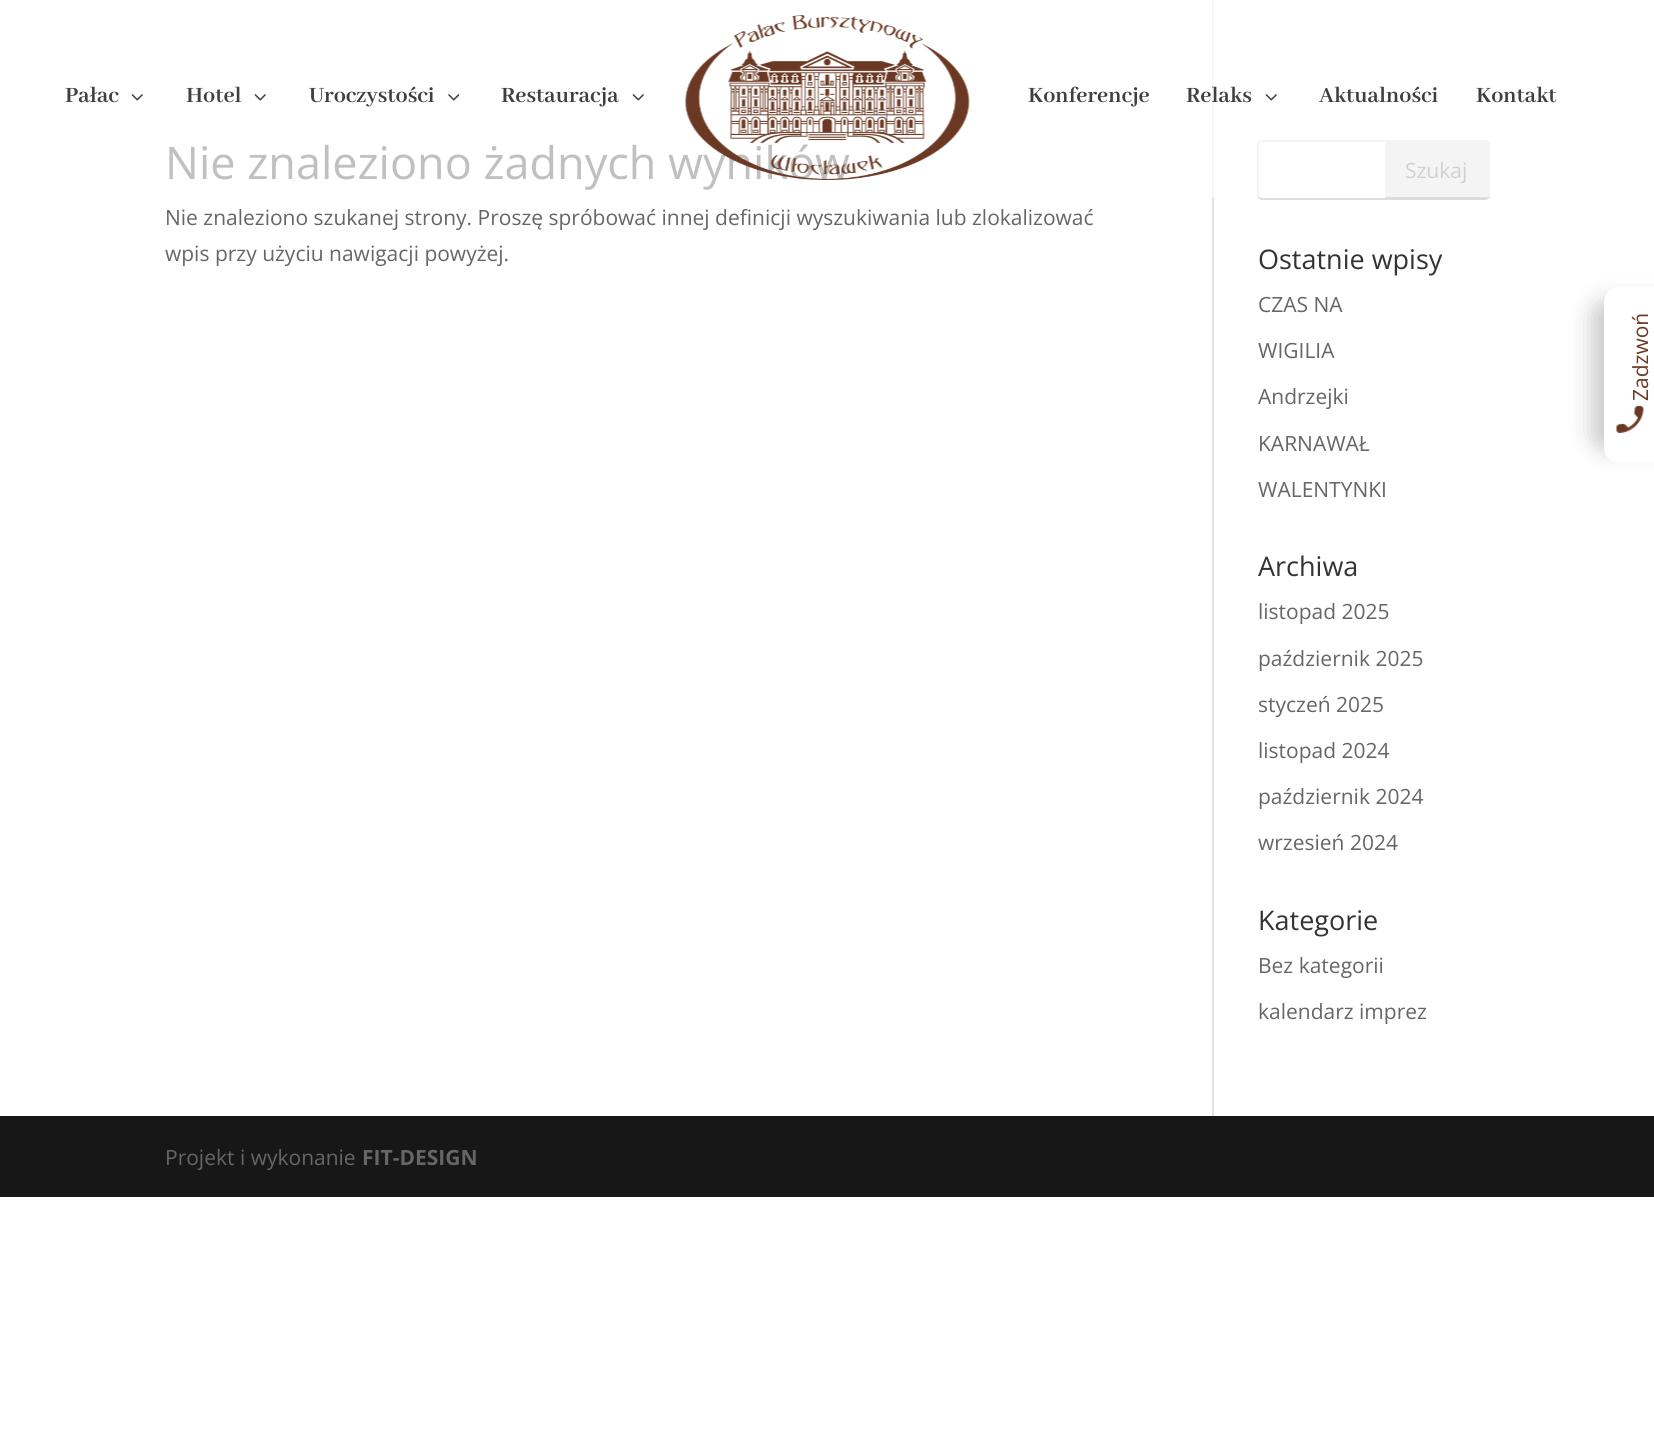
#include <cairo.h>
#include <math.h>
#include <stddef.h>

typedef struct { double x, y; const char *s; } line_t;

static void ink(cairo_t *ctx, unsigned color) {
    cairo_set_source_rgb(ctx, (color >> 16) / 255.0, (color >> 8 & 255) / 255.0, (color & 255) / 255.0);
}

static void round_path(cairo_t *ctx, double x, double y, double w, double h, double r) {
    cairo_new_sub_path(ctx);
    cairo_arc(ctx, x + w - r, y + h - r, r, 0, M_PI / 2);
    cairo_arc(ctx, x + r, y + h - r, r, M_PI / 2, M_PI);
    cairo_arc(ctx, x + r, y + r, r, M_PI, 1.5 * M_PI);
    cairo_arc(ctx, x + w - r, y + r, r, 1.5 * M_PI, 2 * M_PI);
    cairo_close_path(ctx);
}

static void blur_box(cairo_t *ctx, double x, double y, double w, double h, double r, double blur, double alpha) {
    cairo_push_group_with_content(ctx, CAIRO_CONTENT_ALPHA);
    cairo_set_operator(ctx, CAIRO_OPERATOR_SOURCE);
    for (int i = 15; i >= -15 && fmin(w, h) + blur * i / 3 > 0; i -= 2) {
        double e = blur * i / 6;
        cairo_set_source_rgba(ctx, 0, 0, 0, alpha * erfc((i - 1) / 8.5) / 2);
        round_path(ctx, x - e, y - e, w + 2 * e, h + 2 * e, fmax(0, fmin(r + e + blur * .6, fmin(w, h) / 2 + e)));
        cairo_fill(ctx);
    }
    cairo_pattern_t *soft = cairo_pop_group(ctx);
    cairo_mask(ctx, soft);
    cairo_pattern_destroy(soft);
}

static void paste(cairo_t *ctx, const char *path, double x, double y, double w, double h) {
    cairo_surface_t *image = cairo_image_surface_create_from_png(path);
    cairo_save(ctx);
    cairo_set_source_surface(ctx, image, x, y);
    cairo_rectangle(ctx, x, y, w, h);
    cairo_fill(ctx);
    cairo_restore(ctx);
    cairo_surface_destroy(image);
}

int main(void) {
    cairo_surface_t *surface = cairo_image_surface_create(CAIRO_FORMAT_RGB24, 1654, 1450);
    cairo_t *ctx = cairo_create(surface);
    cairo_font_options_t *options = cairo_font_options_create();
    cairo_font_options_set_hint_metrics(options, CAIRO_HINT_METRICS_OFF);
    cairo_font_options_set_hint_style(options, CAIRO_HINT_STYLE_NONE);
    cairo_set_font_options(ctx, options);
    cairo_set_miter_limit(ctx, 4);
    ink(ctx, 0xFFFFFF);
    cairo_paint(ctx);
    ink(ctx, 0xE2E2E2);
    cairo_rectangle(ctx, 1212, 0, 2, 1116);
    cairo_fill(ctx);
    cairo_select_font_face(ctx, "Open Sans", CAIRO_FONT_SLANT_NORMAL, CAIRO_FONT_WEIGHT_NORMAL);
    cairo_set_font_size(ctx, 45);
    ink(ctx, 0x333333);
    cairo_move_to(ctx, 165, 179);
    cairo_show_text(ctx, "Nie znaleziono żadnych wyników");
    round_path(ctx, 1258, 141, 231, 58, 4);
    ink(ctx, 0xDDDDDD);
    cairo_stroke(ctx);
    cairo_new_path(ctx);
    cairo_move_to(ctx, 1386, 141);
    cairo_line_to(ctx, 1485, 141);
    cairo_curve_to(ctx, 1487, 141, 1489, 143, 1489, 145);
    cairo_line_to(ctx, 1489, 195);
    cairo_curve_to(ctx, 1489, 197, 1487, 199, 1485, 199);
    cairo_line_to(ctx, 1386, 199);
    cairo_close_path(ctx);
    cairo_fill_preserve(ctx);
    cairo_stroke(ctx);
    cairo_set_font_size(ctx, 21);
    ink(ctx, 0x666666);
    cairo_move_to(ctx, 1405, 178);
    cairo_show_text(ctx, "Szukaj");
    cairo_set_source_rgba(ctx, 1, 1, 1, 0.69);
    cairo_rectangle(ctx, 169, 0, 1321, 197);
    cairo_fill(ctx);
    paste(ctx, "media/1.png", 685, 15, 285, 165);
    cairo_select_font_face(ctx, "Abhaya Libre", CAIRO_FONT_SLANT_NORMAL, CAIRO_FONT_WEIGHT_BOLD);
    cairo_set_font_size(ctx, 24);
    ink(ctx, 0x3F3F3F);
    cairo_move_to(ctx, 65, 102);
    cairo_show_text(ctx, "Pałac");
    paste(ctx, "media/2.png", 131, 94, 12, 7);
    cairo_move_to(ctx, 186, 102);
    cairo_show_text(ctx, "Hotel");
    paste(ctx, "media/2.png", 254, 94, 12, 7);
    cairo_move_to(ctx, 309, 102);
    cairo_show_text(ctx, "Uroczystości");
    paste(ctx, "media/3.png", 448, 94, 12, 7);
    cairo_move_to(ctx, 501, 102);
    cairo_show_text(ctx, "Restauracja");
    paste(ctx, "media/2.png", 632, 94, 12, 7);
    cairo_move_to(ctx, 1028, 102);
    cairo_show_text(ctx, "Konferencje");
    cairo_move_to(ctx, 1186, 102);
    cairo_show_text(ctx, "Relaks");
    paste(ctx, "media/2.png", 1265, 94, 12, 7);
    cairo_move_to(ctx, 1319, 102);
    cairo_show_text(ctx, "Aktualności");
    cairo_move_to(ctx, 1476, 102);
    cairo_show_text(ctx, "Kontakt");
    cairo_select_font_face(ctx, "Open Sans", CAIRO_FONT_SLANT_NORMAL, CAIRO_FONT_WEIGHT_NORMAL);
    cairo_set_font_size(ctx, 21);
    ink(ctx, 0x666666);
    cairo_move_to(ctx, 165, 225);
    cairo_show_text(ctx, "Nie znaleziono szukanej strony. Proszę spróbować innej definicji wyszukiwania lub zlokalizować");
    cairo_move_to(ctx, 165, 261);
    cairo_show_text(ctx, "wpis przy użyciu nawigacji powyżej.");
    cairo_set_font_size(ctx, 27);
    ink(ctx, 0x333333);
    cairo_move_to(ctx, 1258, 269);
    cairo_show_text(ctx, "Ostatnie wpisy");
    cairo_set_font_size(ctx, 21);
    ink(ctx, 0x666666);
    {
        static const line_t items[] = {
            {1258, 312, "CZAS NA"},
            {1258, 358, "WIGILIA"},
            {1258, 404, "Andrzejki"},
            {1258, 451, "KARNAWAŁ"},
            {1258, 497, "WALENTYNKI"},
        };
        for (size_t i = 0; i < sizeof items / sizeof *items; i++) {
            cairo_move_to(ctx, items[i].x, items[i].y);
            cairo_show_text(ctx, items[i].s);
        }
    }
    cairo_set_font_size(ctx, 27);
    ink(ctx, 0x333333);
    cairo_move_to(ctx, 1258, 576);
    cairo_show_text(ctx, "Archiwa");
    cairo_set_font_size(ctx, 21);
    ink(ctx, 0x666666);
    {
        static const line_t items[] = {
            {1258, 619, "listopad 2025"},
            {1258, 666, "październik 2025"},
            {1258, 712, "styczeń 2025"},
            {1258, 758, "listopad 2024"},
            {1258, 804, "październik 2024"},
            {1258, 850, "wrzesień 2024"},
        };
        for (size_t i = 0; i < sizeof items / sizeof *items; i++) {
            cairo_move_to(ctx, items[i].x, items[i].y);
            cairo_show_text(ctx, items[i].s);
        }
    }
    cairo_set_font_size(ctx, 27);
    ink(ctx, 0x333333);
    cairo_move_to(ctx, 1258, 930);
    cairo_show_text(ctx, "Kategorie");
    cairo_set_font_size(ctx, 21);
    ink(ctx, 0x666666);
    cairo_move_to(ctx, 1258, 973);
    cairo_show_text(ctx, "Bez kategorii");
    cairo_move_to(ctx, 1258, 1019);
    cairo_show_text(ctx, "kalendarz imprez");
    ink(ctx, 0x171717);
    cairo_rectangle(ctx, 0, 1116, 1654, 81);
    cairo_fill(ctx);
    ink(ctx, 0x666666);
    cairo_move_to(ctx, 165, 1165);
    cairo_show_text(ctx, "Projekt i wykonanie");
    cairo_select_font_face(ctx, "Open Sans", CAIRO_FONT_SLANT_NORMAL, CAIRO_FONT_WEIGHT_BOLD);
    cairo_move_to(ctx, 362, 1165);
    cairo_show_text(ctx, "FIT-DESIGN");
    ink(ctx, 0xCACACA);
    blur_box(ctx, 1592, 300, 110, 150, 15, 11, 1);
    ink(ctx, 0xFFFFFF);
    cairo_new_path(ctx);
    cairo_move_to(ctx, 1604, 448);
    cairo_line_to(ctx, 1604, 302);
    cairo_curve_to(ctx, 1604, 294, 1611, 287, 1619, 287);
    cairo_line_to(ctx, 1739, 287);
    cairo_curve_to(ctx, 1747, 287, 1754, 294, 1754, 302);
    cairo_line_to(ctx, 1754, 448);
    cairo_curve_to(ctx, 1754, 456, 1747, 463, 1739, 463);
    cairo_line_to(ctx, 1619, 463);
    cairo_curve_to(ctx, 1611, 463, 1604, 456, 1604, 448);
    cairo_close_path(ctx);
    cairo_fill(ctx);
    cairo_select_font_face(ctx, "Open Sans", CAIRO_FONT_SLANT_NORMAL, CAIRO_FONT_WEIGHT_NORMAL);
    ink(ctx, 0x6A3924);
    cairo_save(ctx);
    cairo_translate(ctx, 1648, 401);
    cairo_rotate(ctx, -90 * M_PI / 180);
    cairo_move_to(ctx, 0, 0);
    cairo_show_text(ctx, "Zadzwoń");
    cairo_restore(ctx);
    paste(ctx, "media/4.png", 1616, 405, 28, 29);
    cairo_surface_write_to_png(surface, "image.png");
    cairo_font_options_destroy(options);
    cairo_destroy(ctx);
    cairo_surface_destroy(surface);
    return 0;
}
